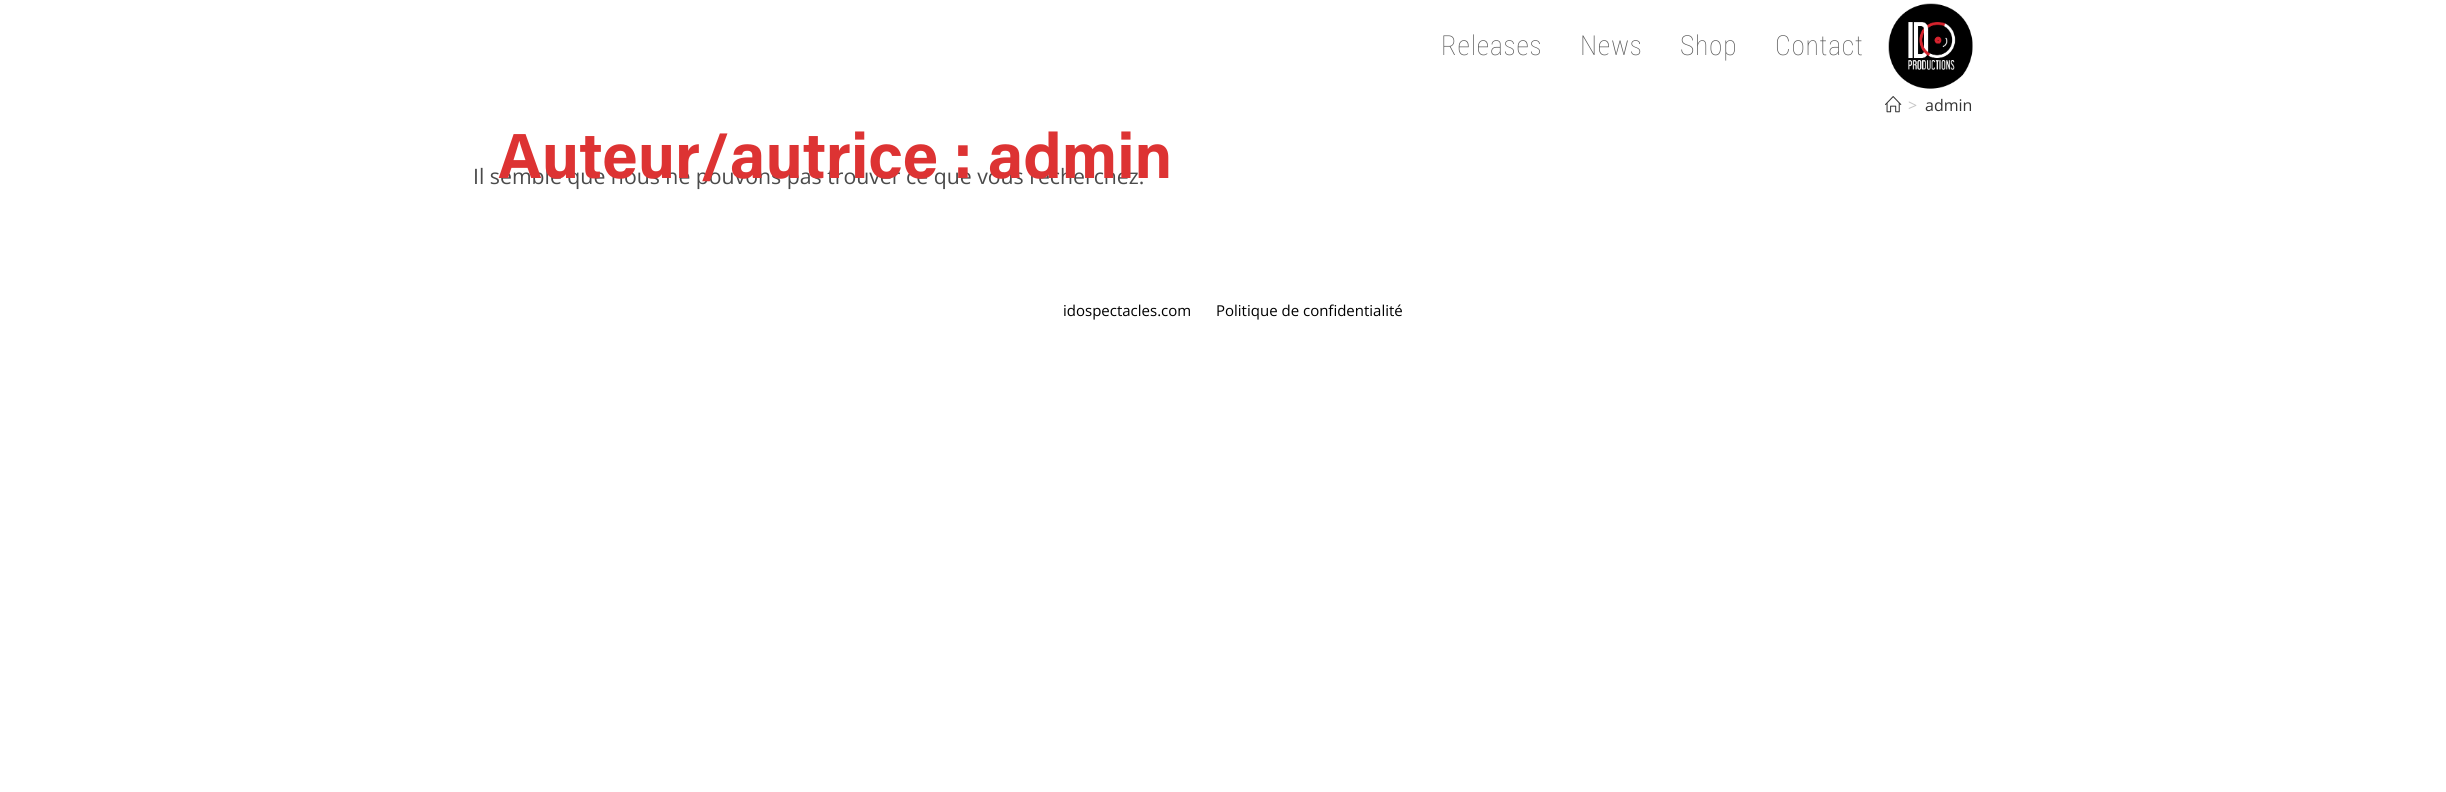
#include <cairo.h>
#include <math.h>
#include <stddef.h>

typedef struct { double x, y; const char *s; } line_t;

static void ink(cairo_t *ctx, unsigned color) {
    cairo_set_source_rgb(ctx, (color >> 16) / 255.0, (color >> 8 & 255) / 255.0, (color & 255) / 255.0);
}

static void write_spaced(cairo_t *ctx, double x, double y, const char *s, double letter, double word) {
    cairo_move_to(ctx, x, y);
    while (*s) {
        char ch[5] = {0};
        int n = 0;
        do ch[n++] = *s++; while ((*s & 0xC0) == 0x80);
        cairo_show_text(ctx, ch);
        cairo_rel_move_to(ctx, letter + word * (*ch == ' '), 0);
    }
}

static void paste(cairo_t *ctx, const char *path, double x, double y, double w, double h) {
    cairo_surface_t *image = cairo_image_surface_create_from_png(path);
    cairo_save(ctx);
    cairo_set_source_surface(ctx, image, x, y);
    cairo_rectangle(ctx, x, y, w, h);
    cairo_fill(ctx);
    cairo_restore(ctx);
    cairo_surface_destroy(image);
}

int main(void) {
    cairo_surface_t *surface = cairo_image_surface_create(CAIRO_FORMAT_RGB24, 2446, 792);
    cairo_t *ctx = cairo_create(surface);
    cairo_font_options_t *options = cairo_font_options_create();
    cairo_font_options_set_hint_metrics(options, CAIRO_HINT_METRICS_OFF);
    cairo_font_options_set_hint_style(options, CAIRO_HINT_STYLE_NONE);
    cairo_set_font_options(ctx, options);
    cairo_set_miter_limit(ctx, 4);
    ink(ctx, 0xFFFFFF);
    cairo_paint(ctx);
    cairo_select_font_face(ctx, "Roboto Condensed Thin", CAIRO_FONT_SLANT_NORMAL, CAIRO_FONT_WEIGHT_NORMAL);
    cairo_set_font_size(ctx, 27.5);
    ink(ctx, 0x555555);
    {
        static const line_t items[] = {
            {1441, 55, "Releases"},
            {1580, 55, "News"},
            {1680, 55, "Shop"},
            {1775, 55, "Contact"},
        };
        for (size_t i = 0; i < sizeof items / sizeof *items; i++) {
            write_spaced(ctx, items[i].x, items[i].y, items[i].s, 0.75, 0);
        }
    }
    paste(ctx, "media/1.png", 1888, 3, 85, 86);
    paste(ctx, "media/2.png", 1885, 96, 17, 17);
    cairo_select_font_face(ctx, "Open Sans", CAIRO_FONT_SLANT_NORMAL, CAIRO_FONT_WEIGHT_NORMAL);
    cairo_set_font_size(ctx, 16);
    ink(ctx, 0xC6C6C6);
    cairo_move_to(ctx, 1908, 111);
    cairo_show_text(ctx, ">");
    ink(ctx, 0x333333);
    cairo_move_to(ctx, 1925, 111);
    cairo_show_text(ctx, "admin");
    cairo_set_font_size(ctx, 21.25);
    ink(ctx, 0x4A4A4A);
    cairo_move_to(ctx, 473, 184);
    cairo_show_text(ctx, "Il semble que nous ne pouvons pas trouver ce que vous recherchez.");
    cairo_select_font_face(ctx, "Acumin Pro", CAIRO_FONT_SLANT_NORMAL, CAIRO_FONT_WEIGHT_BOLD);
    cairo_set_font_size(ctx, 63.75);
    ink(ctx, 0xDD3333);
    cairo_move_to(ctx, 498, 178);
    cairo_show_text(ctx, "Auteur/autrice : admin");
    cairo_select_font_face(ctx, "Open Sans", CAIRO_FONT_SLANT_NORMAL, CAIRO_FONT_WEIGHT_NORMAL);
    cairo_set_font_size(ctx, 15);
    ink(ctx, 0x000000);
    cairo_move_to(ctx, 1063, 316);
    cairo_show_text(ctx, "idospectacles.com");
    cairo_move_to(ctx, 1216, 316);
    cairo_show_text(ctx, "Politique de confidentialité");
    cairo_surface_write_to_png(surface, "image.png");
    cairo_font_options_destroy(options);
    cairo_destroy(ctx);
    cairo_surface_destroy(surface);
    return 0;
}
